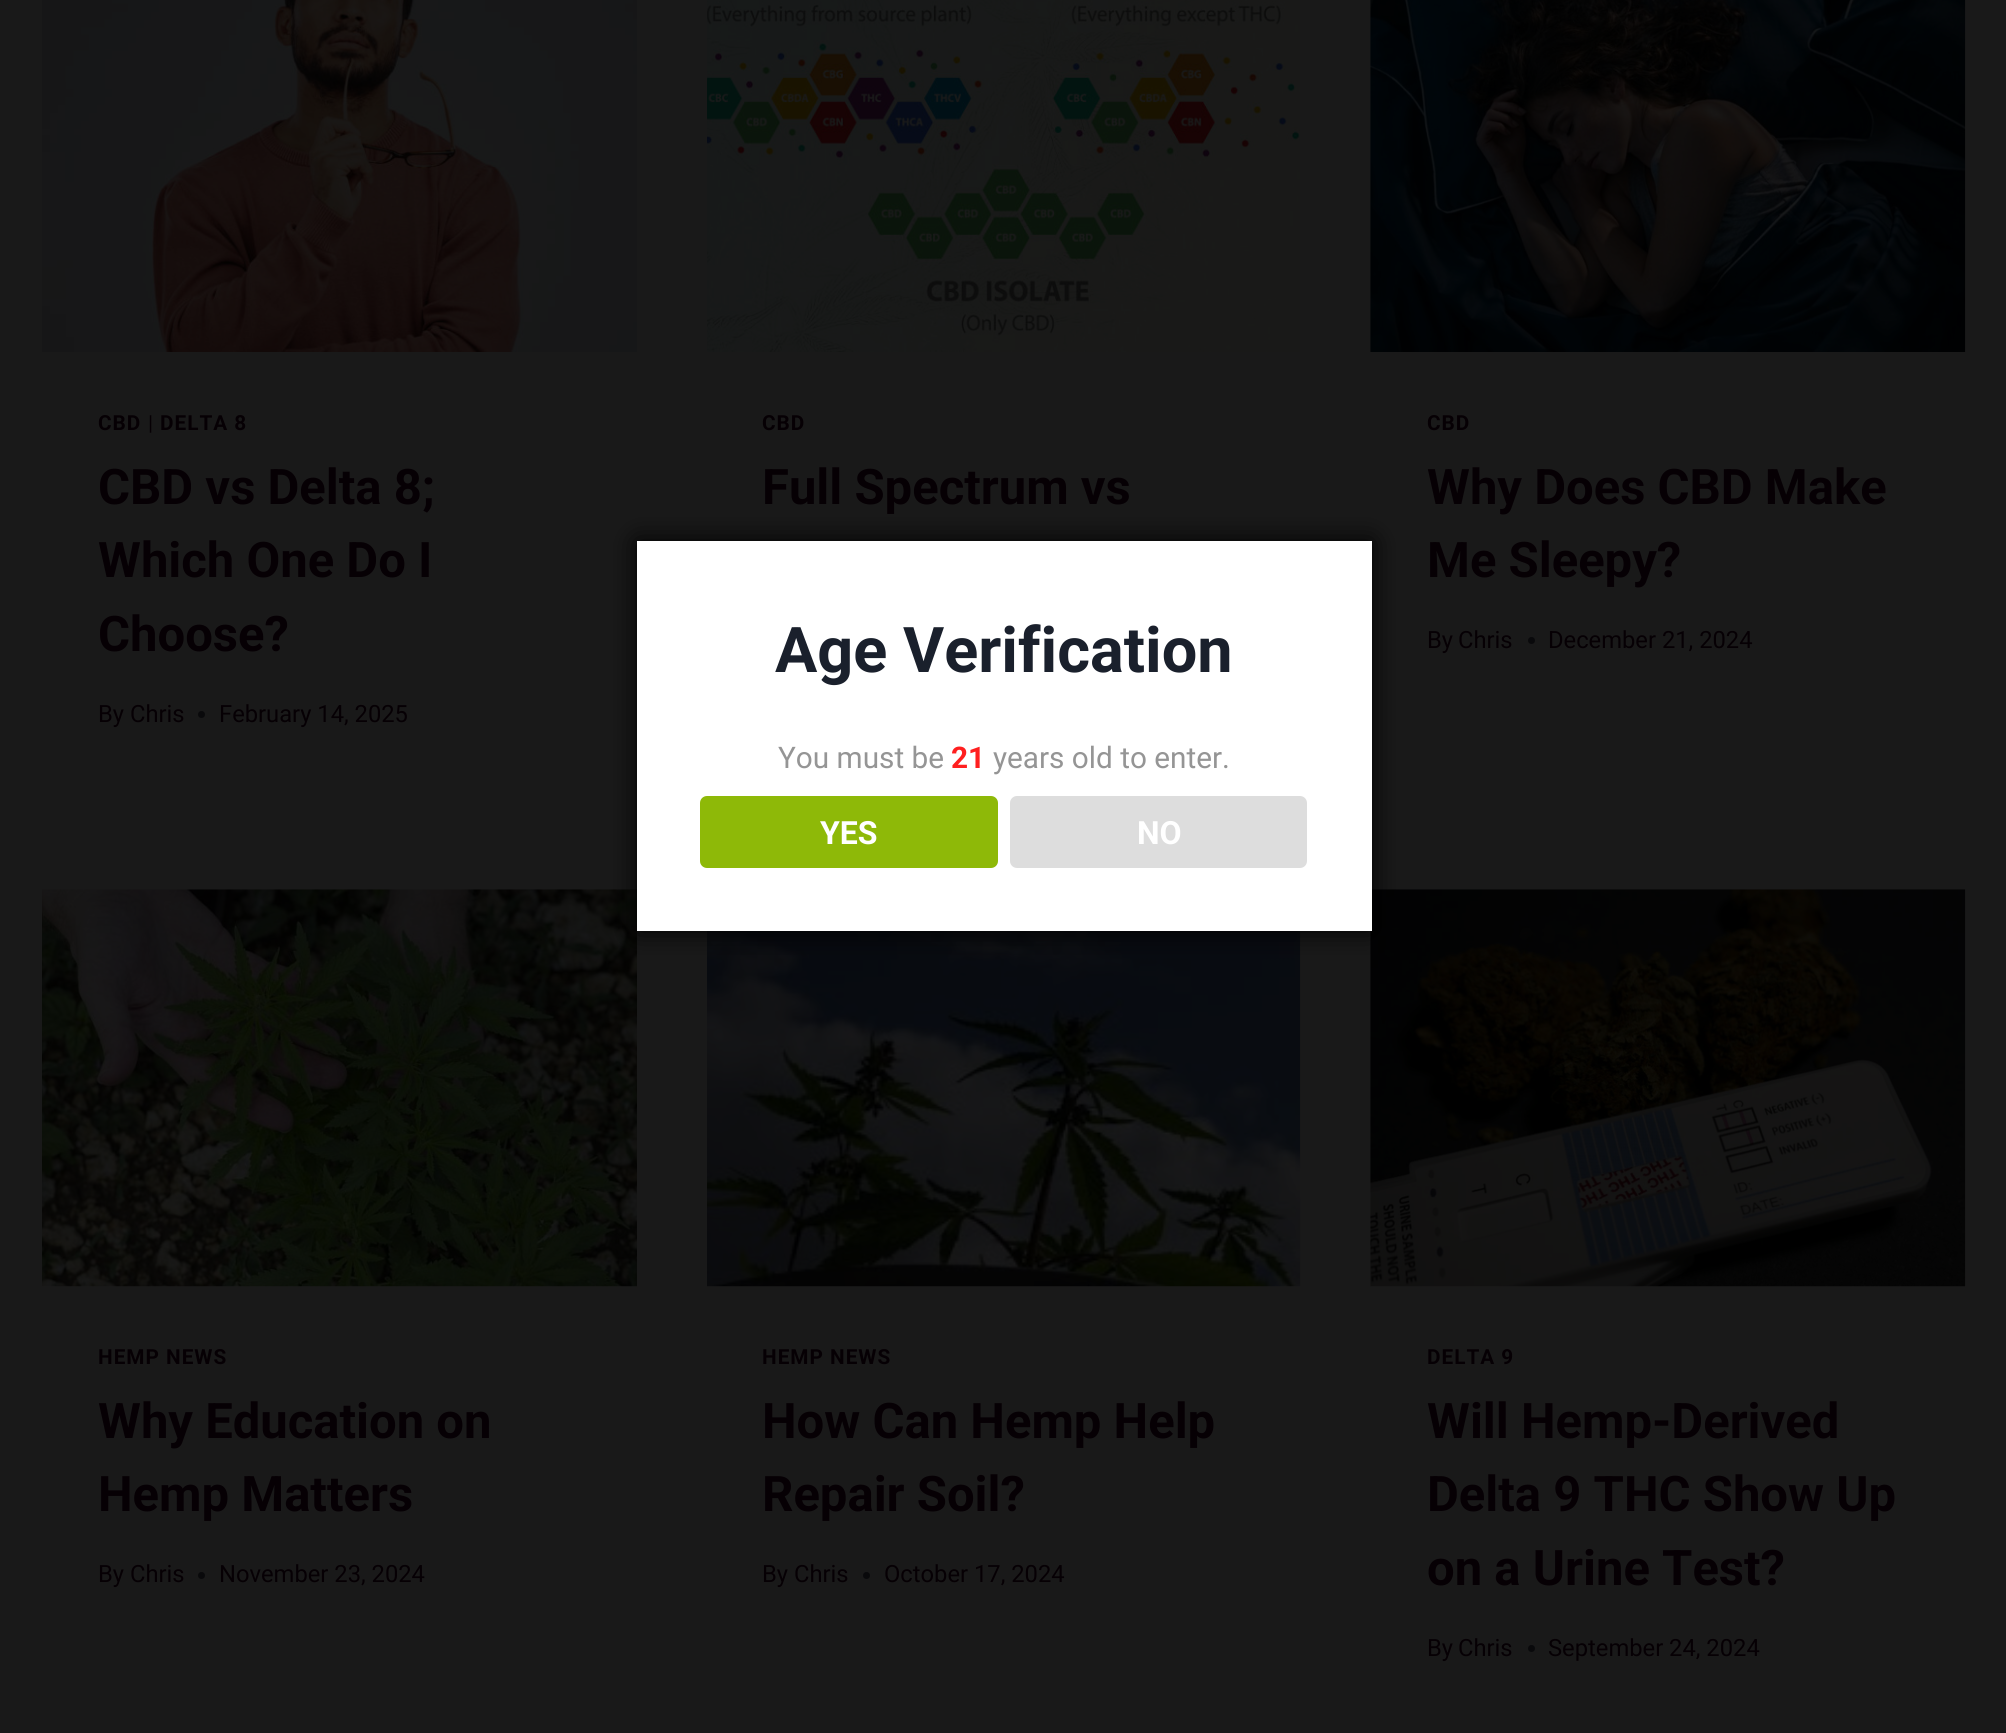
#include <cairo.h>
#include <math.h>
#include <stddef.h>

typedef struct { double x, y; const char *s; } line_t;

static void ink(cairo_t *ctx, unsigned color) {
    cairo_set_source_rgb(ctx, (color >> 16) / 255.0, (color >> 8 & 255) / 255.0, (color & 255) / 255.0);
}

static void write_spaced(cairo_t *ctx, double x, double y, const char *s, double letter, double word) {
    cairo_move_to(ctx, x, y);
    while (*s) {
        char ch[5] = {0};
        int n = 0;
        do ch[n++] = *s++; while ((*s & 0xC0) == 0x80);
        cairo_show_text(ctx, ch);
        cairo_rel_move_to(ctx, letter + word * (*ch == ' '), 0);
    }
}

static void round_path(cairo_t *ctx, double x, double y, double w, double h, double r) {
    cairo_new_sub_path(ctx);
    cairo_arc(ctx, x + w - r, y + h - r, r, 0, M_PI / 2);
    cairo_arc(ctx, x + r, y + h - r, r, M_PI / 2, M_PI);
    cairo_arc(ctx, x + r, y + r, r, M_PI, 1.5 * M_PI);
    cairo_arc(ctx, x + w - r, y + r, r, 1.5 * M_PI, 2 * M_PI);
    cairo_close_path(ctx);
}

static void blur_box(cairo_t *ctx, double x, double y, double w, double h, double r, double blur, double alpha) {
    cairo_push_group_with_content(ctx, CAIRO_CONTENT_ALPHA);
    cairo_set_operator(ctx, CAIRO_OPERATOR_SOURCE);
    for (int i = 15; i >= -15 && fmin(w, h) + blur * i / 3 > 0; i -= 2) {
        double e = blur * i / 6;
        cairo_set_source_rgba(ctx, 0, 0, 0, alpha * erfc((i - 1) / 8.5) / 2);
        round_path(ctx, x - e, y - e, w + 2 * e, h + 2 * e, fmax(0, fmin(r + e + blur * .6, fmin(w, h) / 2 + e)));
        cairo_fill(ctx);
    }
    cairo_pattern_t *soft = cairo_pop_group(ctx);
    cairo_mask(ctx, soft);
    cairo_pattern_destroy(soft);
}

static void paste(cairo_t *ctx, const char *path, double x, double y, double w, double h) {
    cairo_surface_t *image = cairo_image_surface_create_from_png(path);
    cairo_save(ctx);
    cairo_set_source_surface(ctx, image, x, y);
    cairo_rectangle(ctx, x, y, w, h);
    cairo_fill(ctx);
    cairo_restore(ctx);
    cairo_surface_destroy(image);
}

int main(void) {
    cairo_surface_t *surface = cairo_image_surface_create(CAIRO_FORMAT_RGB24, 2006, 1733);
    cairo_t *ctx = cairo_create(surface);
    cairo_font_options_t *options = cairo_font_options_create();
    cairo_font_options_set_hint_metrics(options, CAIRO_HINT_METRICS_OFF);
    cairo_font_options_set_hint_style(options, CAIRO_HINT_STYLE_NONE);
    cairo_set_font_options(ctx, options);
    cairo_set_miter_limit(ctx, 4);
    ink(ctx, 0x191919);
    cairo_paint(ctx);
    paste(ctx, "media/1.png", 42, 0, 595, 352);
    cairo_select_font_face(ctx, "Roboto", CAIRO_FONT_SLANT_NORMAL, CAIRO_FONT_WEIGHT_BOLD);
    cairo_set_font_size(ctx, 20.75);
    ink(ctx, 0x060004);
    write_spaced(ctx, 98, 430, "CBD", 1, 0);
    cairo_select_font_face(ctx, "Roboto", CAIRO_FONT_SLANT_NORMAL, CAIRO_FONT_WEIGHT_NORMAL);
    write_spaced(ctx, 148, 430, "|", 1, 0);
    cairo_select_font_face(ctx, "Roboto", CAIRO_FONT_SLANT_NORMAL, CAIRO_FONT_WEIGHT_BOLD);
    write_spaced(ctx, 160, 430, "DELTA 8", 1, 0);
    cairo_set_font_size(ctx, 49);
    {
        static const line_t items[] = {
            {98, 504, "CBD vs Delta 8;"},
            {98, 577, "Which One Do I"},
            {98, 651, "Choose?"},
        };
        for (size_t i = 0; i < sizeof items / sizeof *items; i++) {
            cairo_move_to(ctx, items[i].x, items[i].y);
            cairo_show_text(ctx, items[i].s);
        }
    }
    cairo_select_font_face(ctx, "Roboto", CAIRO_FONT_SLANT_NORMAL, CAIRO_FONT_WEIGHT_NORMAL);
    cairo_set_font_size(ctx, 23.75);
    cairo_move_to(ctx, 98, 722);
    cairo_show_text(ctx, "By");
    cairo_move_to(ctx, 130, 722);
    cairo_show_text(ctx, "Chris");
    ink(ctx, 0x09090B);
    cairo_new_path(ctx);
    cairo_arc(ctx, 201.5, 714.5, 3.5, 0, 2 * M_PI);
    cairo_fill(ctx);
    ink(ctx, 0x060004);
    cairo_move_to(ctx, 219, 722);
    cairo_show_text(ctx, "February 14, 2025");
    paste(ctx, "media/2.png", 707, 0, 593, 352);
    cairo_select_font_face(ctx, "Roboto", CAIRO_FONT_SLANT_NORMAL, CAIRO_FONT_WEIGHT_BOLD);
    cairo_set_font_size(ctx, 20.75);
    write_spaced(ctx, 762, 430, "CBD", 1, 0);
    cairo_set_font_size(ctx, 49);
    cairo_move_to(ctx, 762, 504);
    cairo_show_text(ctx, "Full Spectrum vs");
    paste(ctx, "media/3.png", 1370, 0, 596, 352);
    cairo_set_font_size(ctx, 20.75);
    write_spaced(ctx, 1427, 430, "CBD", 1, 0);
    cairo_set_font_size(ctx, 49);
    cairo_move_to(ctx, 1427, 504);
    cairo_show_text(ctx, "Why Does CBD Make");
    cairo_move_to(ctx, 1427, 577);
    cairo_show_text(ctx, "Me Sleepy?");
    cairo_select_font_face(ctx, "Roboto", CAIRO_FONT_SLANT_NORMAL, CAIRO_FONT_WEIGHT_NORMAL);
    cairo_set_font_size(ctx, 23.75);
    cairo_move_to(ctx, 1427, 648);
    cairo_show_text(ctx, "By");
    cairo_move_to(ctx, 1458, 648);
    cairo_show_text(ctx, "Chris");
    ink(ctx, 0x09090B);
    cairo_new_path(ctx);
    cairo_arc(ctx, 1531.5, 640.5, 3.5, 0, 2 * M_PI);
    cairo_fill(ctx);
    ink(ctx, 0x060004);
    cairo_move_to(ctx, 1548, 648);
    cairo_show_text(ctx, "December 21, 2024");
    paste(ctx, "media/4.png", 42, 889, 595, 398);
    cairo_select_font_face(ctx, "Roboto", CAIRO_FONT_SLANT_NORMAL, CAIRO_FONT_WEIGHT_BOLD);
    cairo_set_font_size(ctx, 20.75);
    write_spaced(ctx, 98, 1364, "HEMP NEWS", 1, 0);
    cairo_set_font_size(ctx, 49);
    cairo_move_to(ctx, 98, 1438);
    cairo_show_text(ctx, "Why Education on");
    cairo_move_to(ctx, 98, 1511);
    cairo_show_text(ctx, "Hemp Matters");
    cairo_select_font_face(ctx, "Roboto", CAIRO_FONT_SLANT_NORMAL, CAIRO_FONT_WEIGHT_NORMAL);
    cairo_set_font_size(ctx, 23.75);
    cairo_move_to(ctx, 98, 1582);
    cairo_show_text(ctx, "By");
    cairo_move_to(ctx, 130, 1582);
    cairo_show_text(ctx, "Chris");
    ink(ctx, 0x09090B);
    cairo_new_path(ctx);
    cairo_arc(ctx, 201.5, 1575.5, 3.5, 0, 2 * M_PI);
    cairo_fill(ctx);
    ink(ctx, 0x060004);
    cairo_move_to(ctx, 219, 1582);
    cairo_show_text(ctx, "November 23, 2024");
    paste(ctx, "media/5.png", 707, 931, 594, 356);
    cairo_select_font_face(ctx, "Roboto", CAIRO_FONT_SLANT_NORMAL, CAIRO_FONT_WEIGHT_BOLD);
    cairo_set_font_size(ctx, 20.75);
    write_spaced(ctx, 762, 1364, "HEMP NEWS", 1, 0);
    cairo_set_font_size(ctx, 49);
    cairo_move_to(ctx, 762, 1438);
    cairo_show_text(ctx, "How Can Hemp Help");
    cairo_move_to(ctx, 762, 1511);
    cairo_show_text(ctx, "Repair Soil?");
    cairo_select_font_face(ctx, "Roboto", CAIRO_FONT_SLANT_NORMAL, CAIRO_FONT_WEIGHT_NORMAL);
    cairo_set_font_size(ctx, 23.75);
    cairo_move_to(ctx, 762, 1582);
    cairo_show_text(ctx, "By");
    cairo_move_to(ctx, 794, 1582);
    cairo_show_text(ctx, "Chris");
    ink(ctx, 0x09090B);
    cairo_new_path(ctx);
    cairo_arc(ctx, 866.5, 1575.5, 3.5, 0, 2 * M_PI);
    cairo_fill(ctx);
    ink(ctx, 0x060004);
    cairo_move_to(ctx, 884, 1582);
    cairo_show_text(ctx, "October 17, 2024");
    paste(ctx, "media/6.png", 1370, 889, 596, 398);
    cairo_select_font_face(ctx, "Roboto", CAIRO_FONT_SLANT_NORMAL, CAIRO_FONT_WEIGHT_BOLD);
    cairo_set_font_size(ctx, 20.75);
    write_spaced(ctx, 1427, 1364, "DELTA 9", 1, 0);
    cairo_set_font_size(ctx, 49);
    {
        static const line_t items[] = {
            {1427, 1438, "Will Hemp-Derived"},
            {1427, 1511, "Delta 9 THC Show Up"},
            {1427, 1585, "on a Urine Test?"},
        };
        for (size_t i = 0; i < sizeof items / sizeof *items; i++) {
            cairo_move_to(ctx, items[i].x, items[i].y);
            cairo_show_text(ctx, items[i].s);
        }
    }
    cairo_select_font_face(ctx, "Roboto", CAIRO_FONT_SLANT_NORMAL, CAIRO_FONT_WEIGHT_NORMAL);
    cairo_set_font_size(ctx, 23.75);
    cairo_move_to(ctx, 1427, 1656);
    cairo_show_text(ctx, "By");
    cairo_move_to(ctx, 1458, 1656);
    cairo_show_text(ctx, "Chris");
    ink(ctx, 0x09090B);
    cairo_new_path(ctx);
    cairo_arc(ctx, 1531.5, 1648.5, 3.5, 0, 2 * M_PI);
    cairo_fill(ctx);
    ink(ctx, 0x060004);
    cairo_move_to(ctx, 1548, 1656);
    cairo_show_text(ctx, "September 24, 2024");
    ink(ctx, 0x000000);
    blur_box(ctx, 637, 541, 735, 390, 0, 13, 1);
    ink(ctx, 0xFFFFFF);
    cairo_rectangle(ctx, 637, 541, 735, 390);
    cairo_fill(ctx);
    cairo_select_font_face(ctx, "Roboto", CAIRO_FONT_SLANT_NORMAL, CAIRO_FONT_WEIGHT_BOLD);
    cairo_set_font_size(ctx, 63);
    ink(ctx, 0x1A202C);
    cairo_move_to(ctx, 775, 672);
    cairo_show_text(ctx, "Age Verification");
    cairo_select_font_face(ctx, "Roboto", CAIRO_FONT_SLANT_NORMAL, CAIRO_FONT_WEIGHT_NORMAL);
    cairo_set_font_size(ctx, 29.75);
    ink(ctx, 0x959595);
    cairo_move_to(ctx, 778, 768);
    cairo_show_text(ctx, "You must be");
    cairo_select_font_face(ctx, "Roboto", CAIRO_FONT_SLANT_NORMAL, CAIRO_FONT_WEIGHT_BOLD);
    ink(ctx, 0xFF1F1F);
    cairo_move_to(ctx, 951, 768);
    cairo_show_text(ctx, "21");
    cairo_select_font_face(ctx, "Roboto", CAIRO_FONT_SLANT_NORMAL, CAIRO_FONT_WEIGHT_NORMAL);
    ink(ctx, 0x959595);
    cairo_move_to(ctx, 993, 768);
    cairo_show_text(ctx, "years old to enter.");
    ink(ctx, 0x8EB908);
    round_path(ctx, 700, 796, 298, 72, 7);
    cairo_fill(ctx);
    cairo_select_font_face(ctx, "Roboto", CAIRO_FONT_SLANT_NORMAL, CAIRO_FONT_WEIGHT_BOLD);
    cairo_set_font_size(ctx, 32);
    ink(ctx, 0xFFFFFF);
    cairo_move_to(ctx, 820, 844);
    cairo_show_text(ctx, "YES");
    ink(ctx, 0xDDDDDD);
    round_path(ctx, 1010, 796, 297, 72, 7);
    cairo_fill(ctx);
    ink(ctx, 0xFFFFFF);
    cairo_move_to(ctx, 1137, 844);
    cairo_show_text(ctx, "NO");
    cairo_surface_write_to_png(surface, "image.png");
    cairo_font_options_destroy(options);
    cairo_destroy(ctx);
    cairo_surface_destroy(surface);
    return 0;
}
